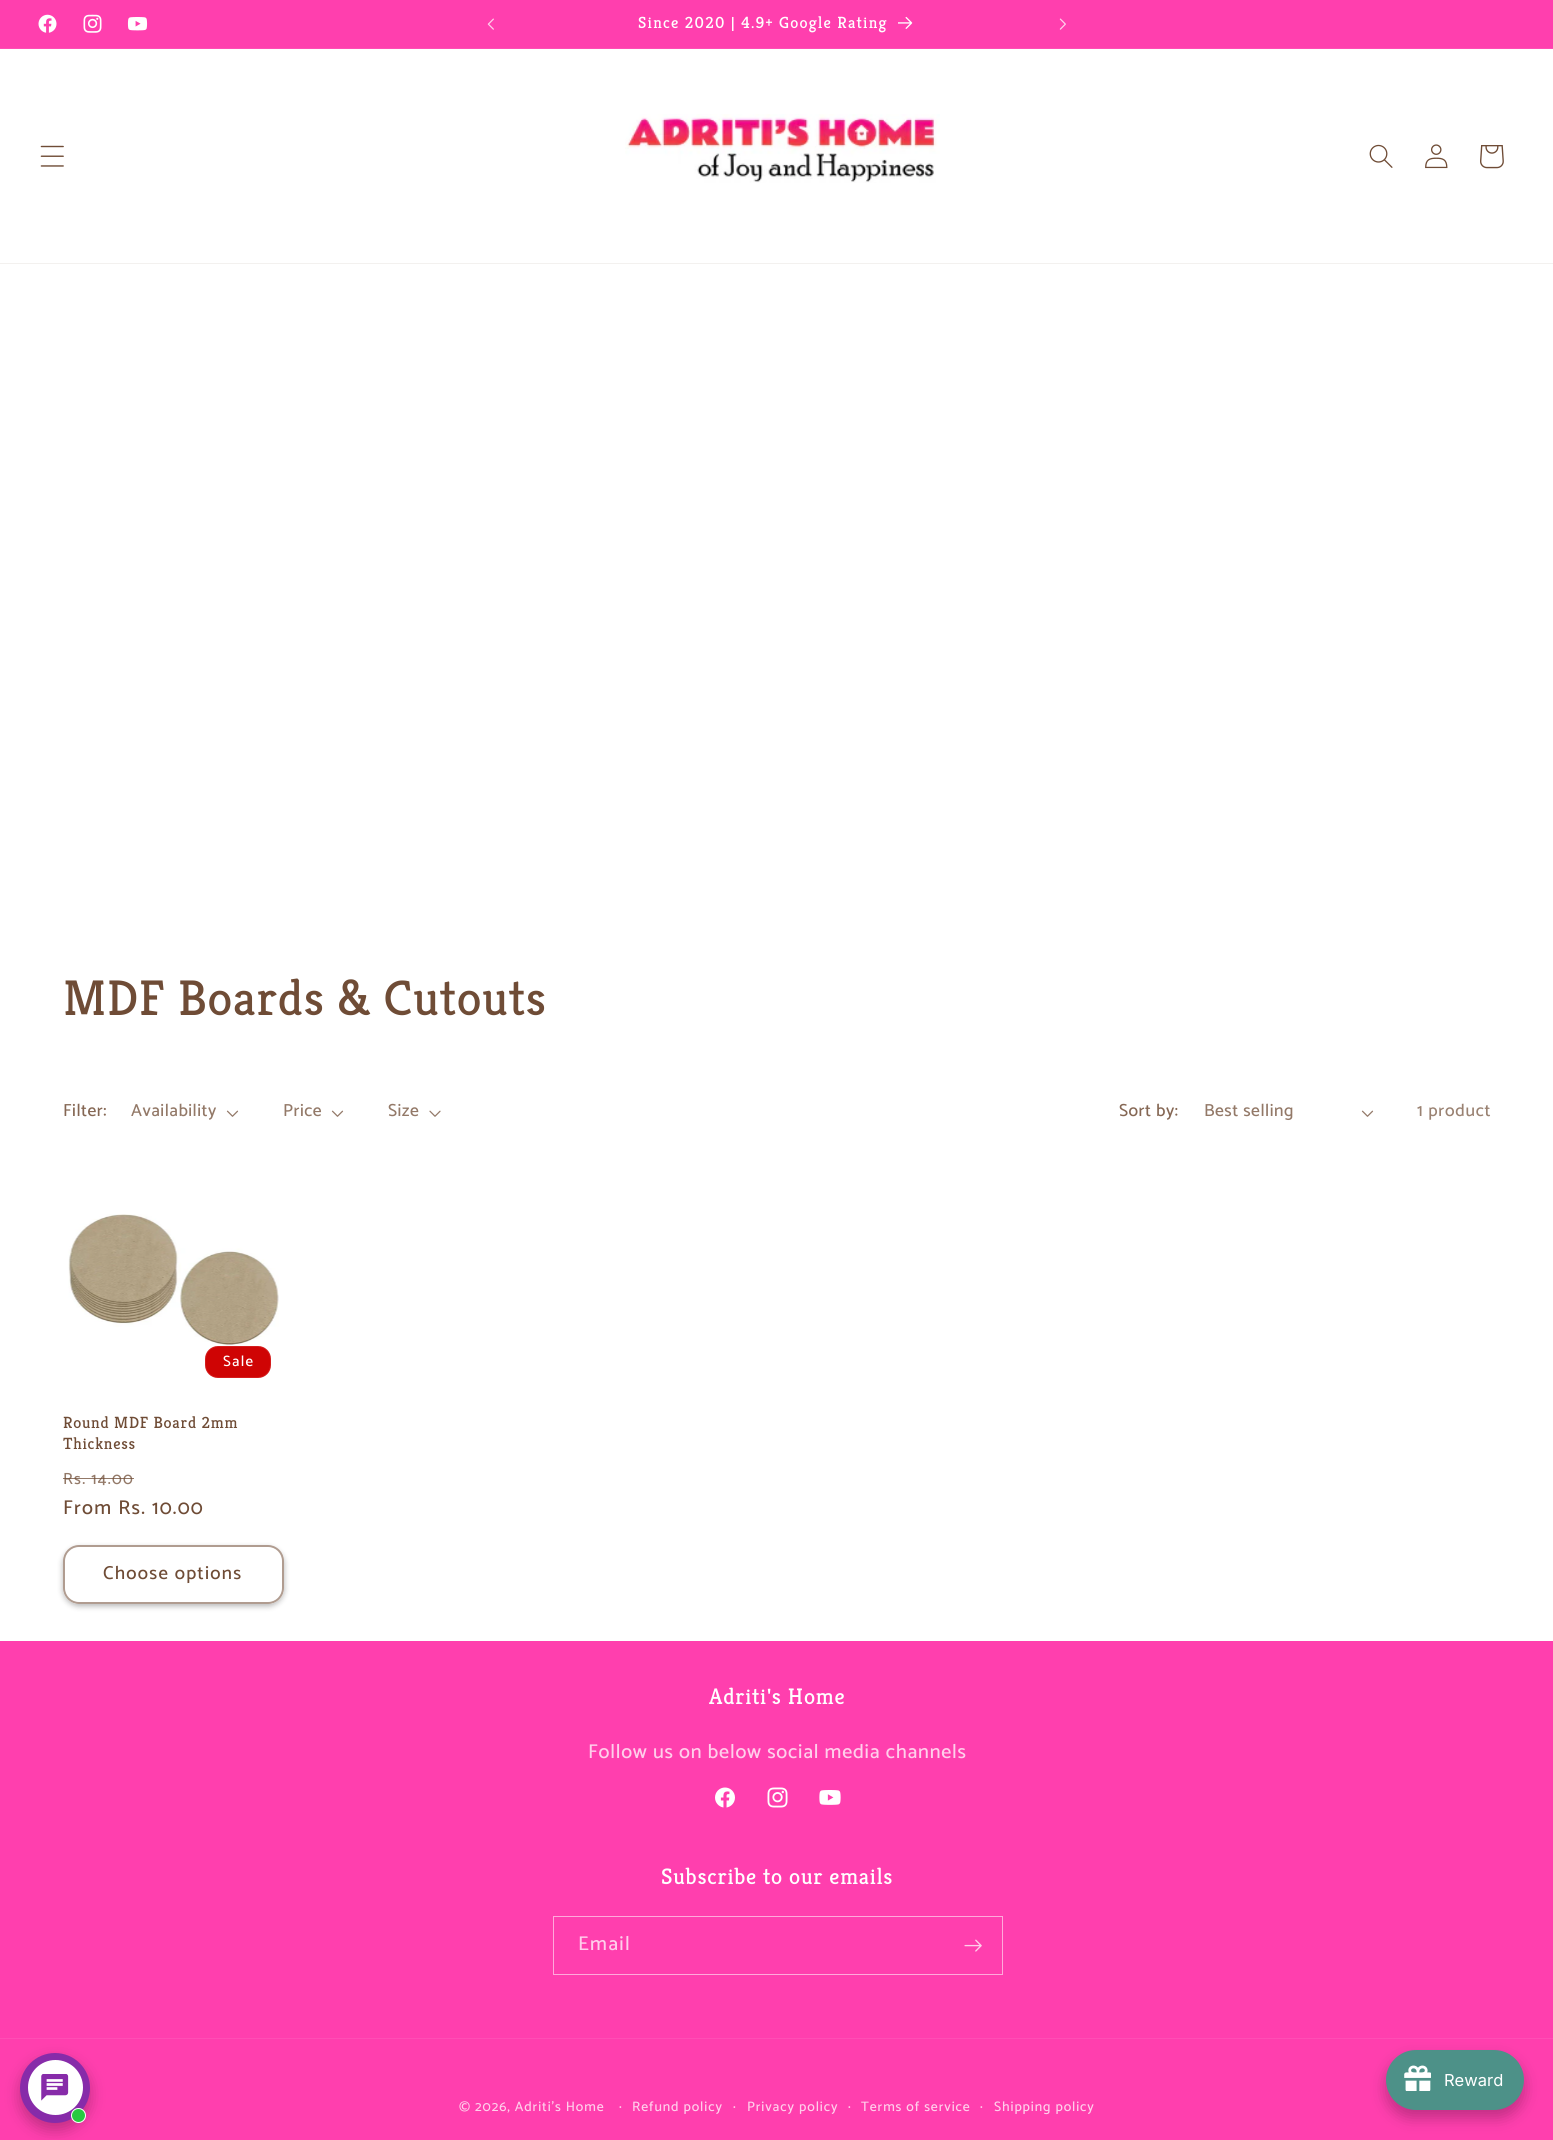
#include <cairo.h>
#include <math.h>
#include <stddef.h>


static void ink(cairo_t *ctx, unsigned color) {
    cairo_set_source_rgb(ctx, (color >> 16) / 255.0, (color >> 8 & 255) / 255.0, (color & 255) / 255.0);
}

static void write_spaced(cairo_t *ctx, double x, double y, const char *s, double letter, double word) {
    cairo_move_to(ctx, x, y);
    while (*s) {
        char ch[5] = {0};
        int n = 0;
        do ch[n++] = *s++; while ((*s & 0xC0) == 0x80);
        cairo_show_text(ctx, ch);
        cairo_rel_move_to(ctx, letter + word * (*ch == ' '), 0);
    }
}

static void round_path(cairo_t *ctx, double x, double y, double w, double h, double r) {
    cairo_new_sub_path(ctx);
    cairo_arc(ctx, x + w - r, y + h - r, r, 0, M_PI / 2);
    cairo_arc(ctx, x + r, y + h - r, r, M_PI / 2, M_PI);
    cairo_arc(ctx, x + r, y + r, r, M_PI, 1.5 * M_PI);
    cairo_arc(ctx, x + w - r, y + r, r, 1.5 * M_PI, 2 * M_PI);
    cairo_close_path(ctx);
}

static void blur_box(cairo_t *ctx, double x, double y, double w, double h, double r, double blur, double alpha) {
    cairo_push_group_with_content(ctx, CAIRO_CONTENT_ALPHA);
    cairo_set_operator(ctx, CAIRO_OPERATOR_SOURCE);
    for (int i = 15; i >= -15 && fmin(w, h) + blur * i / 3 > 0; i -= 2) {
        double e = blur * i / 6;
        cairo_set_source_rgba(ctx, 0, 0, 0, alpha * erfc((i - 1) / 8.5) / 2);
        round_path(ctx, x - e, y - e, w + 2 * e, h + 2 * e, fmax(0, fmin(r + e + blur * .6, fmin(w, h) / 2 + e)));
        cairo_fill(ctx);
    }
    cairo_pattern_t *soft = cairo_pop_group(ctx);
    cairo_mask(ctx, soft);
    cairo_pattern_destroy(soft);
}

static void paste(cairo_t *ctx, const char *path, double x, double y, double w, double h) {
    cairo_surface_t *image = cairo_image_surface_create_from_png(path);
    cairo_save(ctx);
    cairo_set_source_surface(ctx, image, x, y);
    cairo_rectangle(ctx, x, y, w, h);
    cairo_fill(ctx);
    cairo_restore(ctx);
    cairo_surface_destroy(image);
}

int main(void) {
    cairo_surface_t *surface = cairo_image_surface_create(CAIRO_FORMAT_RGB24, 1553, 2140);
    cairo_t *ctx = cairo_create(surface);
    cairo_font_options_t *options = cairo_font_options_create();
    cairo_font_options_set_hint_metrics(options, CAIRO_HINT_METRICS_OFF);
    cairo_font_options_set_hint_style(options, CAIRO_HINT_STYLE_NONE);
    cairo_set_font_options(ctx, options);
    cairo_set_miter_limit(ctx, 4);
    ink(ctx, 0xFFFFFF);
    cairo_paint(ctx);
    ink(ctx, 0xFF3FAE);
    cairo_rectangle(ctx, 0, 0, 1553, 48);
    cairo_fill(ctx);
    ink(ctx, 0xFF4EB4);
    cairo_rectangle(ctx, 0, 48, 1553, 1);
    cairo_fill(ctx);
    paste(ctx, "media/1.png", 38, 14, 19, 19);
    paste(ctx, "media/2.png", 83, 14, 19, 19);
    paste(ctx, "media/3.png", 127, 17, 21, 14);
    paste(ctx, "media/4.png", 487, 18, 7, 12);
    cairo_select_font_face(ctx, "Kreon", CAIRO_FONT_SLANT_NORMAL, CAIRO_FONT_WEIGHT_NORMAL);
    cairo_set_font_size(ctx, 16.25);
    ink(ctx, 0xFFFFFF);
    write_spaced(ctx, 638, 28, "Since 2020 | 4.9+ Google Rating", 1.25, 0);
    paste(ctx, "media/5.png", 898, 16, 15, 13);
    paste(ctx, "media/6.png", 1059, 18, 7, 12);
    ink(ctx, 0xF3F1EF);
    cairo_rectangle(ctx, 0, 263, 1553, 1);
    cairo_fill(ctx);
    paste(ctx, "media/7.png", 40, 145, 24, 22);
    paste(ctx, "media/8.png", 625, 114, 315, 69);
    paste(ctx, "media/9.png", 1369, 144, 24, 24);
    paste(ctx, "media/10.png", 1425, 144, 23, 25);
    paste(ctx, "media/11.png", 1480, 145, 24, 24);
    cairo_set_font_size(ctx, 50);
    ink(ctx, 0x6F4C36);
    write_spaced(ctx, 63, 1015, "MDF Boards & Cutouts", 0.75, 0);
    cairo_select_font_face(ctx, "Catamaran Medium", CAIRO_FONT_SLANT_NORMAL, CAIRO_FONT_WEIGHT_NORMAL);
    cairo_set_font_size(ctx, 17.5);
    ink(ctx, 0x856754);
    write_spaced(ctx, 63, 1116, "Filter:", 0.5, 0);
    ink(ctx, 0x937968);
    write_spaced(ctx, 131, 1116, "Availability", 0.5, 0);
    paste(ctx, "media/12.png", 226, 1110, 13, 7);
    write_spaced(ctx, 283, 1116, "Price", 0.5, 0);
    paste(ctx, "media/12.png", 331, 1110, 13, 7);
    write_spaced(ctx, 388, 1116, "Size", 0.5, 0);
    paste(ctx, "media/13.png", 429, 1110, 12, 7);
    ink(ctx, 0x856754);
    write_spaced(ctx, 1119, 1116, "Sort by:", 0.5, 0);
    ink(ctx, 0x937968);
    write_spaced(ctx, 1204, 1116, "Best selling", 0.5, 0);
    paste(ctx, "media/12.png", 1361, 1110, 13, 7);
    ink(ctx, 0x9A8272);
    write_spaced(ctx, 1417, 1116, "1 product", 0.75, 0);
    paste(ctx, "media/14.png", 68, 1214, 211, 132);
    ink(ctx, 0xCF0404);
    round_path(ctx, 205, 1346, 66, 32, 13);
    cairo_fill(ctx);
    round_path(ctx, 205.5, 1346.5, 65, 31, 12.5);
    cairo_set_source_rgba(ctx, 1, 1, 1, 0.1);
    cairo_set_line_width(ctx, 1);
    cairo_stroke(ctx);
    cairo_set_font_size(ctx, 15);
    ink(ctx, 0xFFFFFF);
    write_spaced(ctx, 223, 1366, "Sale", 1.25, 0);
    cairo_select_font_face(ctx, "Kreon", CAIRO_FONT_SLANT_NORMAL, CAIRO_FONT_WEIGHT_NORMAL);
    cairo_set_font_size(ctx, 16.25);
    ink(ctx, 0x6F4C36);
    write_spaced(ctx, 63, 1428, "Round MDF Board 2mm", 0.75, 0);
    write_spaced(ctx, 63, 1449, "Thickness", 0.75, 0);
    cairo_select_font_face(ctx, "Catamaran Medium", CAIRO_FONT_SLANT_NORMAL, CAIRO_FONT_WEIGHT_NORMAL);
    ink(ctx, 0x937968);
    write_spaced(ctx, 63, 1484, "Rs. 14.00", 1.25, 0);
    cairo_set_source_rgba(ctx, 0.435, 0.298, 0.212, 0.75);
    cairo_rectangle(ctx, 63, 1478, 71, 1);
    cairo_fill(ctx);
    cairo_set_font_size(ctx, 20);
    ink(ctx, 0x6F4C36);
    write_spaced(ctx, 63, 1514, "From Rs. 10.00", 1.25, 0);
    ink(ctx, 0x000000);
    blur_box(ctx, 63, 1548, 221, 58, 16, 3, 0.3);
    ink(ctx, 0xFFFFFF);
    round_path(ctx, 63, 1545, 221, 59, 16);
    cairo_fill(ctx);
    round_path(ctx, 63.5, 1545.5, 220, 58, 15.5);
    cairo_stroke(ctx);
    round_path(ctx, 64, 1546, 219, 57, 15);
    cairo_set_source_rgba(ctx, 0.435, 0.298, 0.212, 0.55);
    cairo_set_line_width(ctx, 2);
    cairo_stroke(ctx);
    cairo_set_font_size(ctx, 18.75);
    ink(ctx, 0x6F4C36);
    write_spaced(ctx, 103, 1579, "Choose options", 1.25, 0);
    ink(ctx, 0xFF3FAE);
    cairo_rectangle(ctx, 0, 1641, 1553, 499);
    cairo_fill(ctx);
    ink(ctx, 0xFF4EB4);
    cairo_rectangle(ctx, 0, 2038, 1553, 1);
    cairo_fill(ctx);
    ink(ctx, 0x000000);
    blur_box(ctx, 20, 2060, 70, 70, 35, 7.5, 0.25);
    ink(ctx, 0x872BA9);
    cairo_arc(ctx, 55, 2088, 35, 0, 2 * M_PI);
    cairo_fill(ctx);
    ink(ctx, 0xFFFFFF);
    cairo_arc(ctx, 55.5, 2087.5, 27.5, 0, 2 * M_PI);
    cairo_fill(ctx);
    paste(ctx, "media/15.png", 41, 2074, 28, 27);
    ink(ctx, 0x27CA40);
    cairo_arc(ctx, 78.5, 2115.5, 7, 0, 2 * M_PI);
    cairo_fill_preserve(ctx);
    ink(ctx, 0xFFFFFF);
    cairo_set_line_width(ctx, 1);
    cairo_stroke(ctx);
    cairo_select_font_face(ctx, "Kreon", CAIRO_FONT_SLANT_NORMAL, CAIRO_FONT_WEIGHT_NORMAL);
    cairo_set_font_size(ctx, 22.5);
    write_spaced(ctx, 709, 1704, "Adriti's Home", 0.75, 0);
    cairo_select_font_face(ctx, "Catamaran Medium", CAIRO_FONT_SLANT_NORMAL, CAIRO_FONT_WEIGHT_NORMAL);
    cairo_set_font_size(ctx, 20);
    ink(ctx, 0xFFCFEB);
    write_spaced(ctx, 588, 1758, "Follow us on below social media channels", 0.75, 0);
    paste(ctx, "media/16.png", 715, 1787, 20, 21);
    paste(ctx, "media/17.png", 767, 1787, 21, 21);
    paste(ctx, "media/18.png", 819, 1790, 22, 15);
    cairo_select_font_face(ctx, "Kreon", CAIRO_FONT_SLANT_NORMAL, CAIRO_FONT_WEIGHT_NORMAL);
    cairo_set_font_size(ctx, 22.5);
    ink(ctx, 0xFFFFFF);
    write_spaced(ctx, 661, 1884, "Subscribe to our emails", 0.75, 0);
    cairo_rectangle(ctx, 553.5, 1916.5, 449, 58);
    ink(ctx, 0xFFA9DB);
    cairo_stroke(ctx);
    cairo_select_font_face(ctx, "Catamaran Medium", CAIRO_FONT_SLANT_NORMAL, CAIRO_FONT_WEIGHT_NORMAL);
    cairo_set_font_size(ctx, 20);
    ink(ctx, 0xFFCFEB);
    write_spaced(ctx, 578, 1950, "Email", 1.25, 0);
    paste(ctx, "media/19.png", 964, 1939, 18, 13);
    cairo_set_font_size(ctx, 13.75);
    write_spaced(ctx, 459, 2111, "© 2026, Adriti's Home", 0.9, 0);
    cairo_set_font_size(ctx, 15);
    write_spaced(ctx, 619, 2111, "·", 0.9, 0);
    cairo_set_font_size(ctx, 13.75);
    write_spaced(ctx, 632, 2111, "Refund policy", 0.9, 0);
    cairo_set_font_size(ctx, 15);
    write_spaced(ctx, 733, 2111, "·", 0.9, 0);
    cairo_set_font_size(ctx, 13.75);
    write_spaced(ctx, 747, 2111, "Privacy policy", 0.9, 0);
    cairo_set_font_size(ctx, 15);
    write_spaced(ctx, 848, 2111, "·", 0.9, 0);
    cairo_set_font_size(ctx, 13.75);
    write_spaced(ctx, 861, 2111, "Terms of service", 0.9, 0);
    cairo_set_font_size(ctx, 15);
    write_spaced(ctx, 980, 2111, "·", 0.9, 0);
    cairo_set_font_size(ctx, 13.75);
    write_spaced(ctx, 994, 2111, "Shipping policy", 0.9, 0);
    ink(ctx, 0x000000);
    blur_box(ctx, 1386, 2058, 138, 60, 30, 7.5, 0.25);
    ink(ctx, 0x4D9188);
    round_path(ctx, 1386, 2050, 138, 60, 30);
    cairo_fill(ctx);
    paste(ctx, "media/20.png", 1404, 2065, 27, 26);
    cairo_select_font_face(ctx, "Inter", CAIRO_FONT_SLANT_NORMAL, CAIRO_FONT_WEIGHT_NORMAL);
    cairo_set_font_size(ctx, 16.5);
    ink(ctx, 0xFFFFFF);
    cairo_move_to(ctx, 1444, 2086);
    cairo_show_text(ctx, "Reward");
    cairo_surface_write_to_png(surface, "image.png");
    cairo_font_options_destroy(options);
    cairo_destroy(ctx);
    cairo_surface_destroy(surface);
    return 0;
}
